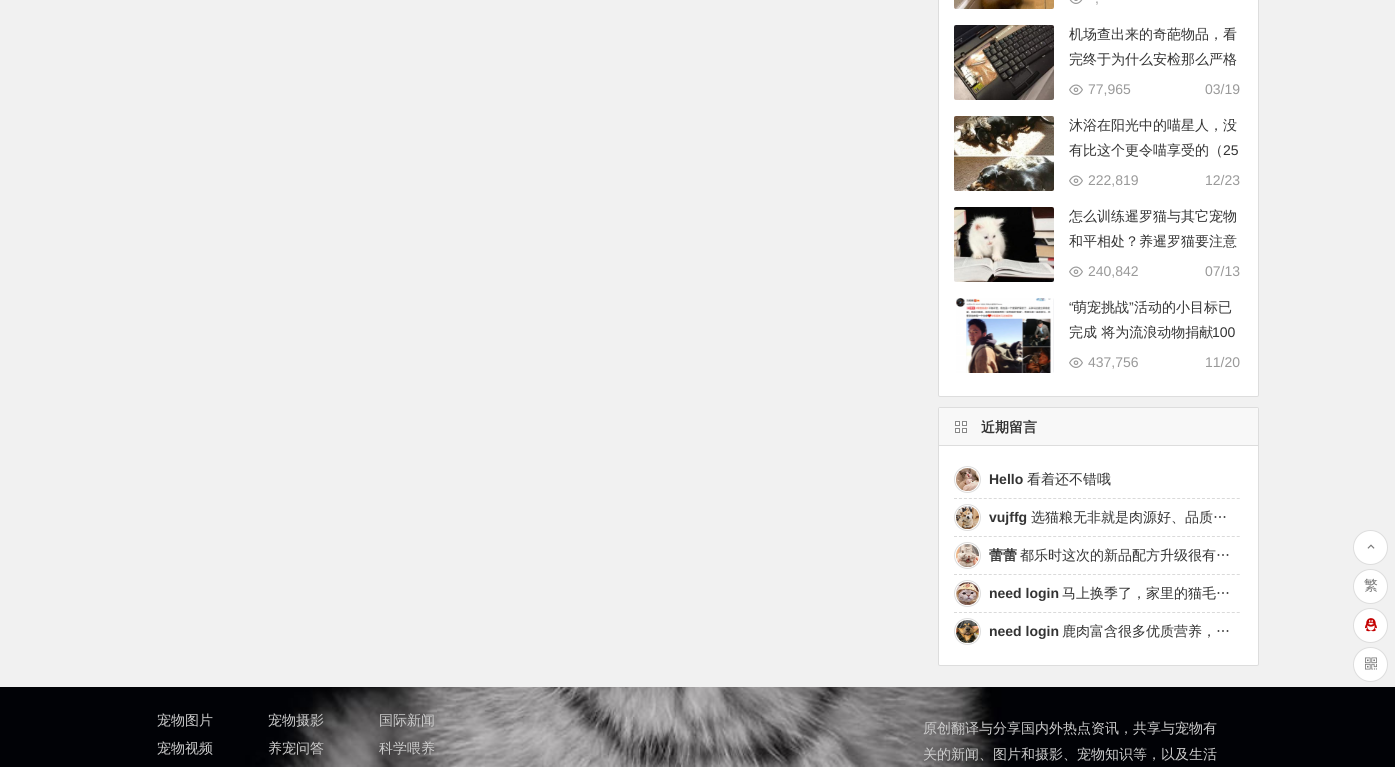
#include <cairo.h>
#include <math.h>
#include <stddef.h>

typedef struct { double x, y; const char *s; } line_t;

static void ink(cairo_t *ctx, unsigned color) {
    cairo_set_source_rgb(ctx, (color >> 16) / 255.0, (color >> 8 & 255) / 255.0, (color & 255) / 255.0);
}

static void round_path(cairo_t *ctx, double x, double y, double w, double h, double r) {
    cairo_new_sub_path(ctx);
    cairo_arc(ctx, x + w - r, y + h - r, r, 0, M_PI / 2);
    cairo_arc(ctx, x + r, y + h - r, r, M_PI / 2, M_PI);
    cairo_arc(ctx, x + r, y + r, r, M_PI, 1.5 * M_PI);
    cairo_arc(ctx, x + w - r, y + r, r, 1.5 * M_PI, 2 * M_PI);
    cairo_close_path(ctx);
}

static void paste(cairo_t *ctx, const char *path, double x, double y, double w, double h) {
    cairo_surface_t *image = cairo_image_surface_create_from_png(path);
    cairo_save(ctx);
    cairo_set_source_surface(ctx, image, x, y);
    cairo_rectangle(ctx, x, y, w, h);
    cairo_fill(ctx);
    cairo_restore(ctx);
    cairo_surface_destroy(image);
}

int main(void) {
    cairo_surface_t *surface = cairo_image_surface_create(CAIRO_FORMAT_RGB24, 1395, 767);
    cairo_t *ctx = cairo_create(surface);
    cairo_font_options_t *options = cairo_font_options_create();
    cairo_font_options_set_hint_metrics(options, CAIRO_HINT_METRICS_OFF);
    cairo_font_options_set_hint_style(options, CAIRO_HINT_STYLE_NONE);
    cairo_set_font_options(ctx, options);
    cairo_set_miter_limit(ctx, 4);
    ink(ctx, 0xF1F1F1);
    cairo_paint(ctx);
    ink(ctx, 0xFFFFFF);
    round_path(ctx, 938.5, -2.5, 320, 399, 1.5);
    cairo_fill_preserve(ctx);
    ink(ctx, 0xDDDDDD);
    cairo_set_line_width(ctx, 1);
    cairo_stroke(ctx);
    paste(ctx, "media/1.png", 954, 0, 100, 9);
    paste(ctx, "media/2.png", 1069, 0, 14, 4);
    cairo_select_font_face(ctx, "Liberation Sans", CAIRO_FONT_SLANT_NORMAL, CAIRO_FONT_WEIGHT_NORMAL);
    cairo_set_font_size(ctx, 14);
    ink(ctx, 0x999999);
    cairo_move_to(ctx, 1095, 3);
    cairo_show_text(ctx, ",");
    paste(ctx, "media/3.png", 954, 25, 100, 75);
    cairo_select_font_face(ctx, "WenQuanYi Zen Hei Medium", CAIRO_FONT_SLANT_NORMAL, CAIRO_FONT_WEIGHT_NORMAL);
    ink(ctx, 0x333333);
    cairo_move_to(ctx, 1069, 39);
    cairo_show_text(ctx, "机场查出来的奇葩物品，看");
    cairo_move_to(ctx, 1069, 64);
    cairo_show_text(ctx, "完终于为什么安检那么严格");
    paste(ctx, "media/4.png", 1069, 84, 14, 11);
    cairo_select_font_face(ctx, "Liberation Sans", CAIRO_FONT_SLANT_NORMAL, CAIRO_FONT_WEIGHT_NORMAL);
    ink(ctx, 0x999999);
    cairo_move_to(ctx, 1088, 94);
    cairo_show_text(ctx, "77,965");
    cairo_move_to(ctx, 1205, 94);
    cairo_show_text(ctx, "03/19");
    paste(ctx, "media/5.png", 954, 116, 100, 75);
    cairo_select_font_face(ctx, "WenQuanYi Zen Hei Medium", CAIRO_FONT_SLANT_NORMAL, CAIRO_FONT_WEIGHT_NORMAL);
    ink(ctx, 0x333333);
    cairo_move_to(ctx, 1069, 130);
    cairo_show_text(ctx, "沐浴在阳光中的喵星人，没");
    cairo_move_to(ctx, 1069, 155);
    cairo_show_text(ctx, "有比这个更令喵享受的（");
    cairo_select_font_face(ctx, "Liberation Sans", CAIRO_FONT_SLANT_NORMAL, CAIRO_FONT_WEIGHT_NORMAL);
    cairo_move_to(ctx, 1223, 155);
    cairo_show_text(ctx, "25");
    paste(ctx, "media/4.png", 1069, 175, 14, 11);
    ink(ctx, 0x999999);
    cairo_move_to(ctx, 1088, 185);
    cairo_show_text(ctx, "222,819");
    cairo_move_to(ctx, 1205, 185);
    cairo_show_text(ctx, "12/23");
    paste(ctx, "media/6.png", 954, 207, 100, 75);
    cairo_select_font_face(ctx, "WenQuanYi Zen Hei Medium", CAIRO_FONT_SLANT_NORMAL, CAIRO_FONT_WEIGHT_NORMAL);
    ink(ctx, 0x333333);
    cairo_move_to(ctx, 1069, 221);
    cairo_show_text(ctx, "怎么训练暹罗猫与其它宠物");
    cairo_move_to(ctx, 1069, 246);
    cairo_show_text(ctx, "和平相处？养暹罗猫要注意");
    paste(ctx, "media/4.png", 1069, 266, 14, 11);
    cairo_select_font_face(ctx, "Liberation Sans", CAIRO_FONT_SLANT_NORMAL, CAIRO_FONT_WEIGHT_NORMAL);
    ink(ctx, 0x999999);
    cairo_move_to(ctx, 1088, 276);
    cairo_show_text(ctx, "240,842");
    cairo_move_to(ctx, 1205, 276);
    cairo_show_text(ctx, "07/13");
    paste(ctx, "media/7.png", 956, 298, 98, 75);
    ink(ctx, 0x333333);
    cairo_move_to(ctx, 1069, 312);
    cairo_show_text(ctx, "“");
    cairo_select_font_face(ctx, "WenQuanYi Zen Hei Medium", CAIRO_FONT_SLANT_NORMAL, CAIRO_FONT_WEIGHT_NORMAL);
    cairo_move_to(ctx, 1073, 312);
    cairo_show_text(ctx, "萌宠挑战");
    cairo_select_font_face(ctx, "Liberation Sans", CAIRO_FONT_SLANT_NORMAL, CAIRO_FONT_WEIGHT_NORMAL);
    cairo_move_to(ctx, 1129, 312);
    cairo_show_text(ctx, "”");
    cairo_select_font_face(ctx, "WenQuanYi Zen Hei Medium", CAIRO_FONT_SLANT_NORMAL, CAIRO_FONT_WEIGHT_NORMAL);
    cairo_move_to(ctx, 1134, 312);
    cairo_show_text(ctx, "活动的小目标已");
    cairo_move_to(ctx, 1069, 337);
    cairo_show_text(ctx, "完成 将为流浪动物捐献");
    cairo_select_font_face(ctx, "Liberation Sans", CAIRO_FONT_SLANT_NORMAL, CAIRO_FONT_WEIGHT_NORMAL);
    cairo_move_to(ctx, 1212, 337);
    cairo_show_text(ctx, "100");
    paste(ctx, "media/4.png", 1069, 357, 14, 11);
    ink(ctx, 0x999999);
    cairo_move_to(ctx, 1088, 367);
    cairo_show_text(ctx, "437,756");
    cairo_move_to(ctx, 1205, 367);
    cairo_show_text(ctx, "11/20");
    ink(ctx, 0xFFFFFF);
    round_path(ctx, 938.5, 407.5, 320, 258, 1.5);
    cairo_fill_preserve(ctx);
    ink(ctx, 0xDDDDDD);
    cairo_stroke(ctx);
    ink(ctx, 0xF8F8F8);
    cairo_new_path(ctx);
    cairo_move_to(ctx, 941, 408);
    cairo_line_to(ctx, 1256, 408);
    cairo_curve_to(ctx, 1257, 408, 1258, 409, 1258, 410);
    cairo_line_to(ctx, 1258, 446);
    cairo_line_to(ctx, 939, 446);
    cairo_line_to(ctx, 939, 410);
    cairo_curve_to(ctx, 939, 409, 940, 408, 941, 408);
    cairo_close_path(ctx);
    cairo_fill(ctx);
    ink(ctx, 0xDDDDDD);
    cairo_rectangle(ctx, 939, 445, 319, 1);
    cairo_fill(ctx);
    ink(ctx, 0xFFFFFF);
    cairo_rectangle(ctx, 955.5, 421.5, 4, 4);
    cairo_fill_preserve(ctx);
    ink(ctx, 0x888888);
    cairo_stroke(ctx);
    ink(ctx, 0xFFFFFF);
    cairo_rectangle(ctx, 962.5, 421.5, 4, 4);
    cairo_fill_preserve(ctx);
    ink(ctx, 0x888888);
    cairo_stroke(ctx);
    ink(ctx, 0xFFFFFF);
    cairo_rectangle(ctx, 955.5, 428.5, 4, 4);
    cairo_fill_preserve(ctx);
    ink(ctx, 0x888888);
    cairo_stroke(ctx);
    ink(ctx, 0xFFFFFF);
    cairo_rectangle(ctx, 962.5, 428.5, 4, 4);
    cairo_fill_preserve(ctx);
    ink(ctx, 0x888888);
    cairo_stroke(ctx);
    cairo_select_font_face(ctx, "WenQuanYi Zen Hei", CAIRO_FONT_SLANT_NORMAL, CAIRO_FONT_WEIGHT_BOLD);
    ink(ctx, 0x333333);
    cairo_move_to(ctx, 981, 432);
    cairo_show_text(ctx, "近期留言");
    cairo_new_path(ctx);
    cairo_move_to(ctx, 954, 498.5);
    cairo_line_to(ctx, 1240, 498.5);
    ink(ctx, 0xDADADA);
    cairo_set_dash(ctx, (double[]){3, 1.96}, 2, 0);
    cairo_stroke(ctx);
    cairo_arc(ctx, 967.5, 479.5, 13, 0, 2 * M_PI);
    ink(ctx, 0xDDDDDD);
    cairo_set_dash(ctx, NULL, 0, 0);
    cairo_stroke(ctx);
    paste(ctx, "media/8.png", 956, 468, 23, 23);
    cairo_select_font_face(ctx, "Liberation Sans", CAIRO_FONT_SLANT_NORMAL, CAIRO_FONT_WEIGHT_BOLD);
    ink(ctx, 0x333333);
    cairo_move_to(ctx, 989, 484);
    cairo_show_text(ctx, "Hello");
    cairo_select_font_face(ctx, "WenQuanYi Zen Hei Medium", CAIRO_FONT_SLANT_NORMAL, CAIRO_FONT_WEIGHT_NORMAL);
    cairo_move_to(ctx, 1027, 484);
    cairo_show_text(ctx, "看着还不错哦");
    cairo_new_path(ctx);
    cairo_move_to(ctx, 954, 536.5);
    cairo_line_to(ctx, 1240, 536.5);
    ink(ctx, 0xDADADA);
    cairo_set_dash(ctx, (double[]){3, 1.96}, 2, 0);
    cairo_stroke(ctx);
    cairo_arc(ctx, 967.5, 517.5, 13, 0, 2 * M_PI);
    ink(ctx, 0xDDDDDD);
    cairo_set_dash(ctx, NULL, 0, 0);
    cairo_stroke(ctx);
    paste(ctx, "media/9.png", 956, 506, 23, 23);
    cairo_select_font_face(ctx, "Liberation Sans", CAIRO_FONT_SLANT_NORMAL, CAIRO_FONT_WEIGHT_BOLD);
    ink(ctx, 0x333333);
    cairo_move_to(ctx, 989, 522);
    cairo_show_text(ctx, "vujffg");
    cairo_select_font_face(ctx, "WenQuanYi Zen Hei Medium", CAIRO_FONT_SLANT_NORMAL, CAIRO_FONT_WEIGHT_NORMAL);
    cairo_move_to(ctx, 1031, 522);
    cairo_show_text(ctx, "选猫粮无非就是肉源好、品质…");
    cairo_new_path(ctx);
    cairo_move_to(ctx, 954, 574.5);
    cairo_line_to(ctx, 1240, 574.5);
    ink(ctx, 0xDADADA);
    cairo_set_dash(ctx, (double[]){3, 1.96}, 2, 0);
    cairo_stroke(ctx);
    cairo_arc(ctx, 967.5, 555.5, 13, 0, 2 * M_PI);
    ink(ctx, 0xDDDDDD);
    cairo_set_dash(ctx, NULL, 0, 0);
    cairo_stroke(ctx);
    paste(ctx, "media/10.png", 956, 544, 23, 23);
    cairo_select_font_face(ctx, "WenQuanYi Zen Hei", CAIRO_FONT_SLANT_NORMAL, CAIRO_FONT_WEIGHT_BOLD);
    ink(ctx, 0x333333);
    cairo_move_to(ctx, 989, 560);
    cairo_show_text(ctx, "蕾蕾");
    cairo_select_font_face(ctx, "WenQuanYi Zen Hei Medium", CAIRO_FONT_SLANT_NORMAL, CAIRO_FONT_WEIGHT_NORMAL);
    cairo_move_to(ctx, 1020, 560);
    cairo_show_text(ctx, "都乐时这次的新品配方升级很有…");
    cairo_new_path(ctx);
    cairo_move_to(ctx, 954, 612.5);
    cairo_line_to(ctx, 1240, 612.5);
    ink(ctx, 0xDADADA);
    cairo_set_dash(ctx, (double[]){3, 1.96}, 2, 0);
    cairo_stroke(ctx);
    cairo_arc(ctx, 967.5, 593.5, 13, 0, 2 * M_PI);
    ink(ctx, 0xDDDDDD);
    cairo_set_dash(ctx, NULL, 0, 0);
    cairo_stroke(ctx);
    paste(ctx, "media/11.png", 956, 582, 23, 23);
    cairo_select_font_face(ctx, "Liberation Sans", CAIRO_FONT_SLANT_NORMAL, CAIRO_FONT_WEIGHT_BOLD);
    ink(ctx, 0x333333);
    cairo_move_to(ctx, 989, 598);
    cairo_show_text(ctx, "need login");
    cairo_select_font_face(ctx, "WenQuanYi Zen Hei Medium", CAIRO_FONT_SLANT_NORMAL, CAIRO_FONT_WEIGHT_NORMAL);
    cairo_move_to(ctx, 1062, 598);
    cairo_show_text(ctx, "马上换季了，家里的猫毛…");
    cairo_new_path(ctx);
    cairo_arc(ctx, 967.5, 631.5, 13, 0, 2 * M_PI);
    ink(ctx, 0xDDDDDD);
    cairo_stroke(ctx);
    paste(ctx, "media/12.png", 956, 620, 23, 23);
    cairo_select_font_face(ctx, "Liberation Sans", CAIRO_FONT_SLANT_NORMAL, CAIRO_FONT_WEIGHT_BOLD);
    ink(ctx, 0x333333);
    cairo_move_to(ctx, 989, 636);
    cairo_show_text(ctx, "need login");
    cairo_select_font_face(ctx, "WenQuanYi Zen Hei Medium", CAIRO_FONT_SLANT_NORMAL, CAIRO_FONT_WEIGHT_NORMAL);
    cairo_move_to(ctx, 1062, 636);
    cairo_show_text(ctx, "鹿肉富含很多优质营养，…");
    ink(ctx, 0xFFFFFF);
    cairo_new_path(ctx);
    cairo_arc(ctx, 1370.5, 547.5, 17, 0, 2 * M_PI);
    cairo_fill_preserve(ctx);
    ink(ctx, 0xDDDDDD);
    cairo_stroke(ctx);
    paste(ctx, "media/13.png", 1367, 544, 8, 5);
    ink(ctx, 0xFFFFFF);
    cairo_arc(ctx, 1370.5, 586.5, 17, 0, 2 * M_PI);
    cairo_fill_preserve(ctx);
    ink(ctx, 0xDDDDDD);
    cairo_stroke(ctx);
    ink(ctx, 0x777777);
    cairo_move_to(ctx, 1364, 590);
    cairo_show_text(ctx, "繁");
    ink(ctx, 0xFFFFFF);
    cairo_new_path(ctx);
    cairo_arc(ctx, 1370.5, 625.5, 17, 0, 2 * M_PI);
    cairo_fill_preserve(ctx);
    ink(ctx, 0xDDDDDD);
    cairo_stroke(ctx);
    paste(ctx, "media/14.png", 1365, 618, 12, 14);
    ink(ctx, 0xFFFFFF);
    cairo_arc(ctx, 1370.5, 664.5, 17, 0, 2 * M_PI);
    cairo_fill_preserve(ctx);
    ink(ctx, 0xDDDDDD);
    cairo_stroke(ctx);
    paste(ctx, "media/15.png", 1365, 657, 12, 13);
    paste(ctx, "media/16.png", 0, 687, 1395, 80);
    ink(ctx, 0xCCCCCC);
    {
        static const line_t items[] = {
            {157, 725, "宠物图片"},
            {268, 725, "宠物摄影"},
            {379, 725, "国际新闻"},
            {157, 753, "宠物视频"},
            {268, 753, "养宠问答"},
            {379, 753, "科学喂养"},
            {923, 733, "原创翻译与分享国内外热点资讯，共享与宠物有"},
            {923, 759, "关的新闻、图片和摄影、宠物知识等，以及生活"},
        };
        for (size_t i = 0; i < sizeof items / sizeof *items; i++) {
            cairo_move_to(ctx, items[i].x, items[i].y);
            cairo_show_text(ctx, items[i].s);
        }
    }
    cairo_surface_write_to_png(surface, "image.png");
    cairo_font_options_destroy(options);
    cairo_destroy(ctx);
    cairo_surface_destroy(surface);
    return 0;
}
